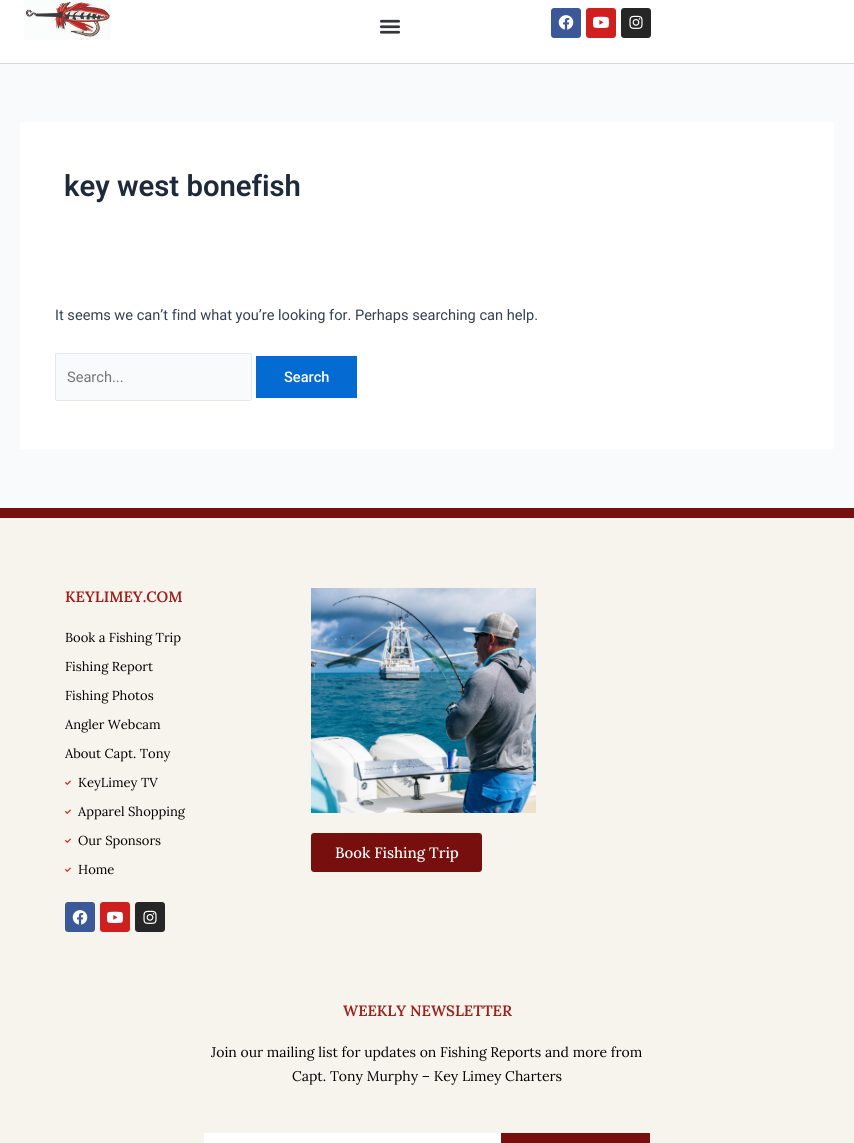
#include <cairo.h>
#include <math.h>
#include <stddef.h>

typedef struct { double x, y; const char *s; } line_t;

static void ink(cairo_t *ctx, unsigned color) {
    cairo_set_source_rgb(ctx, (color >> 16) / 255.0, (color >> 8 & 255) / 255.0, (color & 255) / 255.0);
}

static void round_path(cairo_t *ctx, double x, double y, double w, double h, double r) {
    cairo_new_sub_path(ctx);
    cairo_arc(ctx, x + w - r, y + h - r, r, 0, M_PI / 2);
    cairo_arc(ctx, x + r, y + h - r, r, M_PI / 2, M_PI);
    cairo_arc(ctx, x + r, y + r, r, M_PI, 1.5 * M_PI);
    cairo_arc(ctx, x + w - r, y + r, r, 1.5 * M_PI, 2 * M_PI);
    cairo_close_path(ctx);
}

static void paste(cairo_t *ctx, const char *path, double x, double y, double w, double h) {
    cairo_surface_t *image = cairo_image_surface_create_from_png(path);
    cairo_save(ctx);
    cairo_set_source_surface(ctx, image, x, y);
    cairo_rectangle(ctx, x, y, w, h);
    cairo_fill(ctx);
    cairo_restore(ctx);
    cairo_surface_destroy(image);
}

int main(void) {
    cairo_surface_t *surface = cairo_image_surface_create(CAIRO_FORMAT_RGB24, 854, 1143);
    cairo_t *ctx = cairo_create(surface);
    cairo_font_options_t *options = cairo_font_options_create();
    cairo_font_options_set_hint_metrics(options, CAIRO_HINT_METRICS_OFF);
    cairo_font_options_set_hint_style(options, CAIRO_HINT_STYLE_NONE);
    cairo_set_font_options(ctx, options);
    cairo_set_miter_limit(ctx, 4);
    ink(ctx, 0xF9FAFB);
    cairo_paint(ctx);
    ink(ctx, 0xFFFFFF);
    cairo_rectangle(ctx, 0, 0, 854, 63);
    cairo_fill(ctx);
    ink(ctx, 0xD6D6D6);
    cairo_rectangle(ctx, 0, 63, 854, 1);
    cairo_fill(ctx);
    paste(ctx, "media/1.png", 24, 0, 87, 40);
    paste(ctx, "media/2.png", 379, 19, 22, 15);
    ink(ctx, 0x3B5998);
    round_path(ctx, 551, 8, 30, 30, 3);
    cairo_fill(ctx);
    paste(ctx, "media/3.png", 558, 15, 16, 15);
    ink(ctx, 0xCD201F);
    round_path(ctx, 586, 8, 30, 30, 3);
    cairo_fill(ctx);
    paste(ctx, "media/4.png", 593, 16, 16, 12);
    ink(ctx, 0x262626);
    round_path(ctx, 621, 8, 30, 30, 3);
    cairo_fill(ctx);
    paste(ctx, "media/5.png", 629, 15, 14, 14);
    ink(ctx, 0xFFFFFF);
    cairo_rectangle(ctx, 20, 122, 814, 327);
    cairo_fill(ctx);
    cairo_select_font_face(ctx, "Roboto SemiBold", CAIRO_FONT_SLANT_NORMAL, CAIRO_FONT_WEIGHT_NORMAL);
    cairo_set_font_size(ctx, 29.25);
    ink(ctx, 0x1E293B);
    cairo_move_to(ctx, 64, 196);
    cairo_show_text(ctx, "key west bonefish");
    cairo_select_font_face(ctx, "Roboto", CAIRO_FONT_SLANT_NORMAL, CAIRO_FONT_WEIGHT_NORMAL);
    cairo_set_font_size(ctx, 14.6);
    ink(ctx, 0x334155);
    cairo_move_to(ctx, 55, 320);
    cairo_show_text(ctx, "It seems we can’t find what you’re looking for. Perhaps searching can help.");
    ink(ctx, 0xF9FAFB);
    round_path(ctx, 55.5, 353.5, 196, 47, 1.5);
    cairo_fill_preserve(ctx);
    ink(ctx, 0xE2E8F0);
    cairo_set_line_width(ctx, 1);
    cairo_stroke(ctx);
    ink(ctx, 0x757575);
    cairo_move_to(ctx, 67, 382);
    cairo_show_text(ctx, "Search...");
    ink(ctx, 0x046BD2);
    cairo_rectangle(ctx, 256, 356, 101, 42);
    cairo_fill(ctx);
    cairo_select_font_face(ctx, "Roboto Medium", CAIRO_FONT_SLANT_NORMAL, CAIRO_FONT_WEIGHT_NORMAL);
    ink(ctx, 0xFFFFFF);
    cairo_move_to(ctx, 284, 382);
    cairo_show_text(ctx, "Search");
    ink(ctx, 0xF7F3ED);
    cairo_rectangle(ctx, 0, 518, 854, 625);
    cairo_fill(ctx);
    ink(ctx, 0x770F0F);
    cairo_rectangle(ctx, 0, 508, 854, 10);
    cairo_fill(ctx);
    cairo_select_font_face(ctx, "Lora SemiBold", CAIRO_FONT_SLANT_NORMAL, CAIRO_FONT_WEIGHT_NORMAL);
    cairo_set_font_size(ctx, 15);
    ink(ctx, 0x9B1F1A);
    cairo_move_to(ctx, 65, 602);
    cairo_show_text(ctx, "KEYLIMEY.COM");
    cairo_select_font_face(ctx, "Lora", CAIRO_FONT_SLANT_NORMAL, CAIRO_FONT_WEIGHT_NORMAL);
    cairo_set_font_size(ctx, 13);
    ink(ctx, 0x000000);
    {
        static const line_t items[] = {
            {65, 642, "Book a Fishing Trip"},
            {65, 671, "Fishing Report"},
            {65, 700, "Fishing Photos"},
            {65, 729, "Angler Webcam"},
            {65, 758, "About Capt. Tony"},
        };
        for (size_t i = 0; i < sizeof items / sizeof *items; i++) {
            cairo_move_to(ctx, items[i].x, items[i].y);
            cairo_show_text(ctx, items[i].s);
        }
    }
    paste(ctx, "media/6.png", 65, 780, 6, 5);
    cairo_move_to(ctx, 78, 787);
    cairo_show_text(ctx, "KeyLimey TV");
    paste(ctx, "media/6.png", 65, 809, 6, 5);
    cairo_move_to(ctx, 78, 816);
    cairo_show_text(ctx, "Apparel Shopping");
    paste(ctx, "media/6.png", 65, 838, 6, 5);
    cairo_move_to(ctx, 78, 845);
    cairo_show_text(ctx, "Our Sponsors");
    paste(ctx, "media/6.png", 65, 867, 6, 5);
    cairo_move_to(ctx, 78, 874);
    cairo_show_text(ctx, "Home");
    ink(ctx, 0x3B5998);
    round_path(ctx, 65, 902, 30, 30, 3);
    cairo_fill(ctx);
    paste(ctx, "media/3.png", 72, 910, 16, 15);
    ink(ctx, 0xCD201F);
    round_path(ctx, 100, 902, 30, 30, 3);
    cairo_fill(ctx);
    paste(ctx, "media/4.png", 107, 911, 16, 12);
    ink(ctx, 0x262626);
    round_path(ctx, 135, 902, 30, 30, 3);
    cairo_fill(ctx);
    paste(ctx, "media/5.png", 143, 910, 14, 14);
    paste(ctx, "media/7.png", 311, 588, 225, 225);
    ink(ctx, 0x770F0F);
    round_path(ctx, 311, 833, 171, 39, 3);
    cairo_fill(ctx);
    cairo_select_font_face(ctx, "Lora Medium", CAIRO_FONT_SLANT_NORMAL, CAIRO_FONT_WEIGHT_NORMAL);
    cairo_set_font_size(ctx, 15);
    ink(ctx, 0xFFFFFF);
    cairo_move_to(ctx, 335, 858);
    cairo_show_text(ctx, "Book Fishing Trip");
    cairo_select_font_face(ctx, "Lora SemiBold", CAIRO_FONT_SLANT_NORMAL, CAIRO_FONT_WEIGHT_NORMAL);
    ink(ctx, 0x9B1F1A);
    cairo_move_to(ctx, 343, 1016);
    cairo_show_text(ctx, "WEEKLY NEWSLETTER");
    cairo_select_font_face(ctx, "Lora", CAIRO_FONT_SLANT_NORMAL, CAIRO_FONT_WEIGHT_NORMAL);
    cairo_set_font_size(ctx, 14);
    ink(ctx, 0x000000);
    cairo_move_to(ctx, 211, 1057);
    cairo_show_text(ctx, "Join our mailing list for updates on Fishing Reports and more from");
    cairo_move_to(ctx, 292, 1081);
    cairo_show_text(ctx, "Capt. Tony Murphy – Key Limey Charters");
    ink(ctx, 0xFFFFFF);
    cairo_rectangle(ctx, 204, 1133, 297, 10);
    cairo_fill(ctx);
    ink(ctx, 0x770F0F);
    cairo_rectangle(ctx, 501, 1133, 149, 10);
    cairo_fill(ctx);
    cairo_surface_write_to_png(surface, "image.png");
    cairo_font_options_destroy(options);
    cairo_destroy(ctx);
    cairo_surface_destroy(surface);
    return 0;
}
